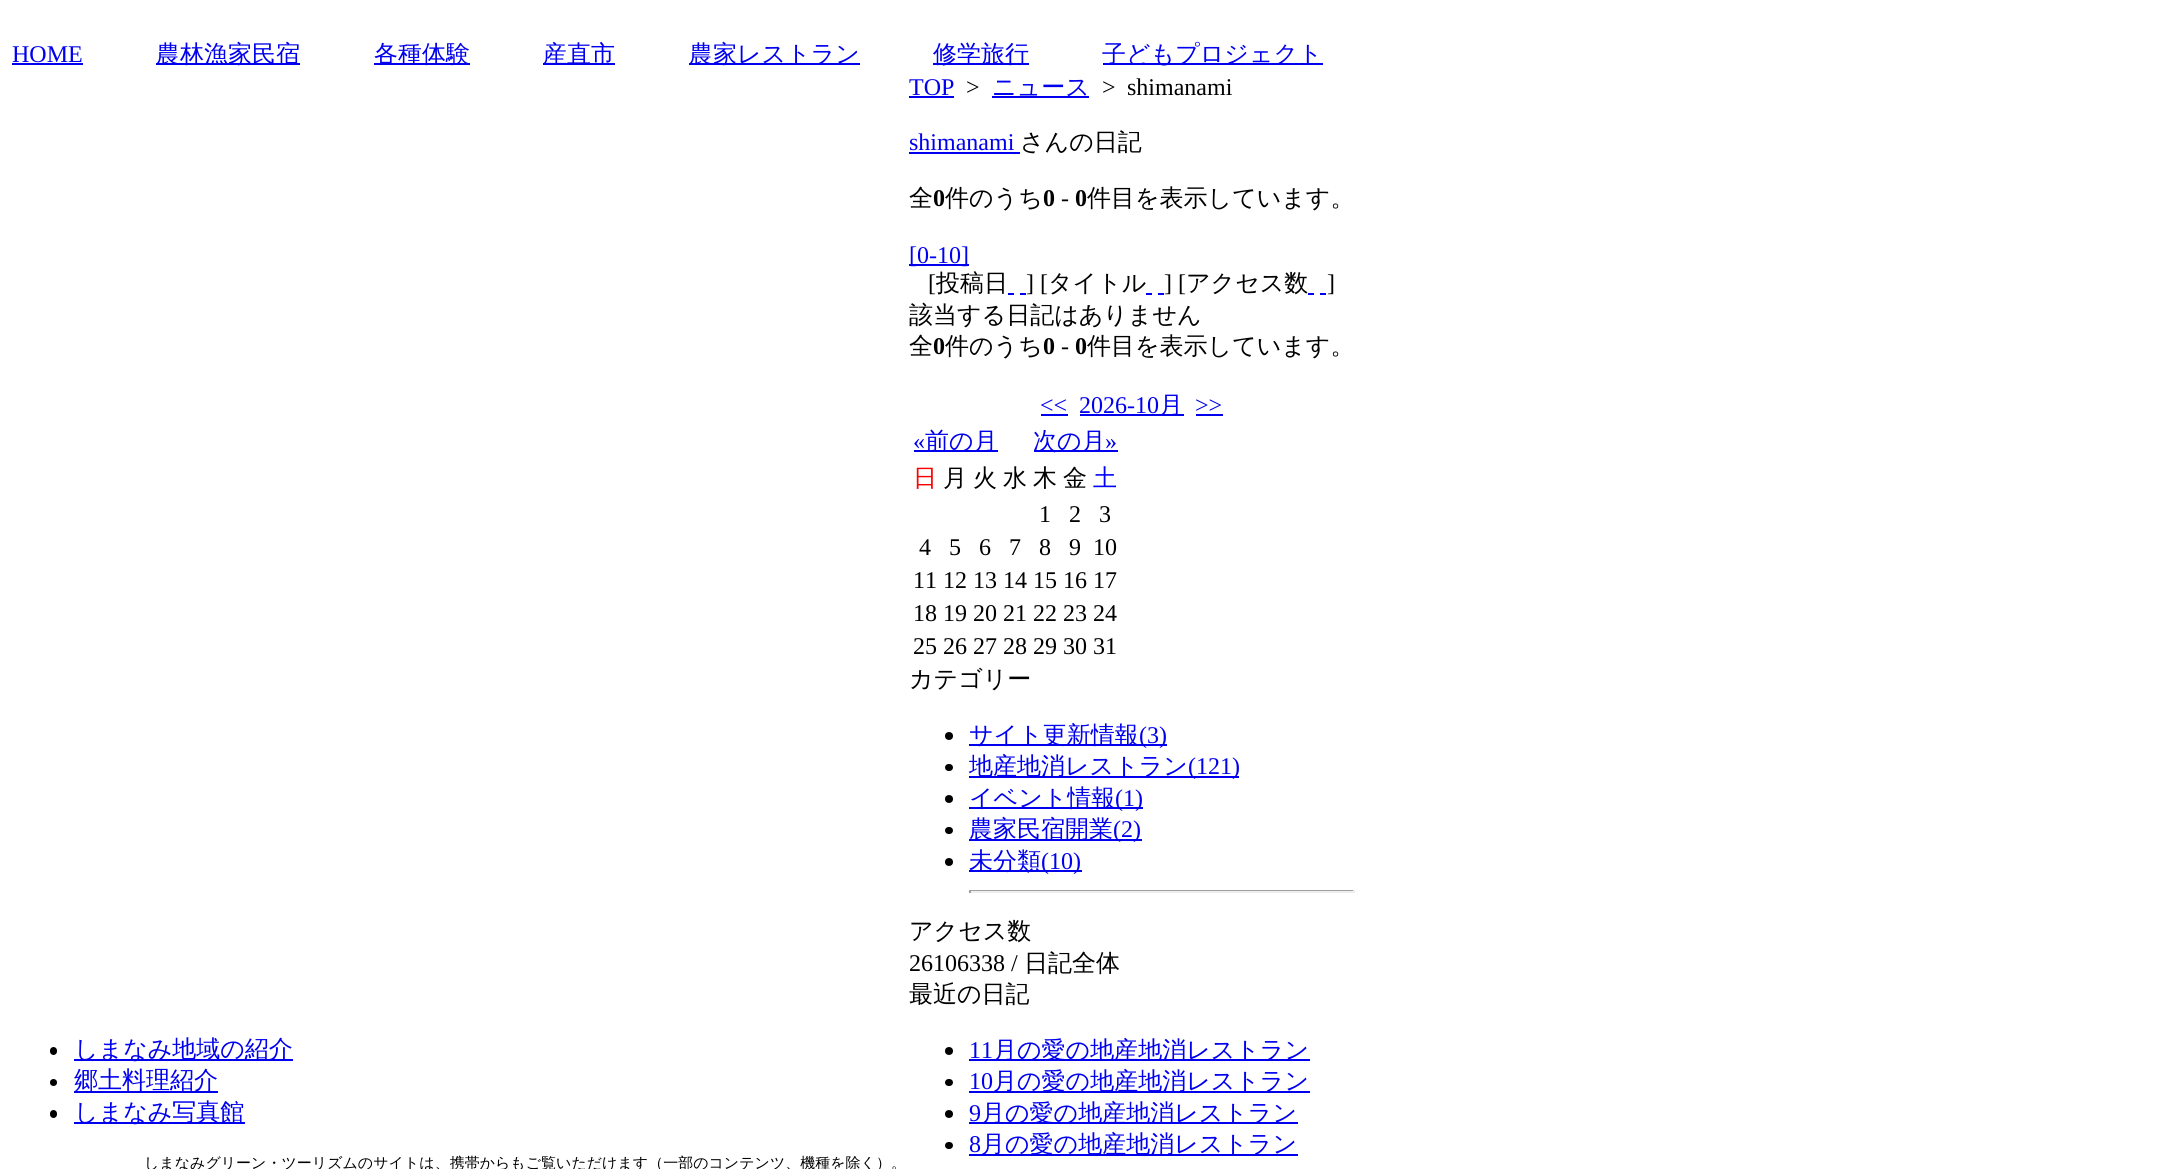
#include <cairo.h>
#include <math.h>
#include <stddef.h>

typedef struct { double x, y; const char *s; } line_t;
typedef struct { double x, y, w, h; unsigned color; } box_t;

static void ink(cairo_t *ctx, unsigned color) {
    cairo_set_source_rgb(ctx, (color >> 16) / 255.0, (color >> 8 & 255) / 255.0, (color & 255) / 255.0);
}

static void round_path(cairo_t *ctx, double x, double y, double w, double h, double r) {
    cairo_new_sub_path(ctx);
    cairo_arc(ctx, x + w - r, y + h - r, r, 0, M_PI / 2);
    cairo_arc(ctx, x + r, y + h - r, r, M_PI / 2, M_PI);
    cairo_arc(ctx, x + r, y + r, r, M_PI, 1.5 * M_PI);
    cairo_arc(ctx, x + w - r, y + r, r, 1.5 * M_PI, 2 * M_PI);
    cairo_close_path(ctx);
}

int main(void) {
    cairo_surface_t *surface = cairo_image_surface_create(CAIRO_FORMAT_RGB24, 2158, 1169);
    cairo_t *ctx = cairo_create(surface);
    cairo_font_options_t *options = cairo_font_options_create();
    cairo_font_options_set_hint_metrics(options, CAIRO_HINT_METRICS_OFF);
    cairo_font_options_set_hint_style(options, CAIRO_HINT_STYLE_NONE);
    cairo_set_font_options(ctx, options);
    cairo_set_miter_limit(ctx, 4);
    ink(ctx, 0xFFFFFF);
    cairo_paint(ctx);
    cairo_select_font_face(ctx, "Liberation Serif", CAIRO_FONT_SLANT_NORMAL, CAIRO_FONT_WEIGHT_NORMAL);
    cairo_set_font_size(ctx, 24);
    ink(ctx, 0x0000EE);
    cairo_move_to(ctx, 12, 62);
    cairo_show_text(ctx, "HOME");
    cairo_rectangle(ctx, 12, 63, 71, 2);
    cairo_fill(ctx);
    cairo_rectangle(ctx, 156, 63, 144, 2);
    cairo_fill(ctx);
    cairo_select_font_face(ctx, "WenQuanYi Zen Hei Medium", CAIRO_FONT_SLANT_NORMAL, CAIRO_FONT_WEIGHT_NORMAL);
    cairo_move_to(ctx, 156, 62);
    cairo_show_text(ctx, "農林漁家民宿");
    cairo_rectangle(ctx, 374, 63, 96, 2);
    cairo_fill(ctx);
    cairo_move_to(ctx, 374, 62);
    cairo_show_text(ctx, "各種体験");
    cairo_rectangle(ctx, 543, 63, 72, 2);
    cairo_fill(ctx);
    cairo_move_to(ctx, 543, 62);
    cairo_show_text(ctx, "産直市");
    cairo_rectangle(ctx, 689, 63, 171, 2);
    cairo_fill(ctx);
    cairo_move_to(ctx, 689, 62);
    cairo_show_text(ctx, "農家レストラン");
    cairo_rectangle(ctx, 933, 63, 96, 2);
    cairo_fill(ctx);
    cairo_move_to(ctx, 933, 62);
    cairo_show_text(ctx, "修学旅行");
    cairo_rectangle(ctx, 1103, 63, 220, 2);
    cairo_fill(ctx);
    cairo_move_to(ctx, 1102, 62);
    cairo_show_text(ctx, "子どもプロジェクト");
    ink(ctx, 0x000000);
    round_path(ctx, 50, 1047, 7, 8, 3.5);
    cairo_fill(ctx);
    ink(ctx, 0x0000EE);
    cairo_rectangle(ctx, 74, 1059, 219, 2);
    cairo_fill(ctx);
    cairo_move_to(ctx, 74, 1057);
    cairo_show_text(ctx, "しまなみ地域の紹介");
    ink(ctx, 0x000000);
    cairo_new_path(ctx);
    cairo_arc(ctx, 53.5, 1082.5, 3.5, 0, 2 * M_PI);
    cairo_fill(ctx);
    ink(ctx, 0x0000EE);
    cairo_rectangle(ctx, 74, 1091, 144, 2);
    cairo_fill(ctx);
    cairo_move_to(ctx, 74, 1088);
    cairo_show_text(ctx, "郷土料理紹介");
    ink(ctx, 0x000000);
    round_path(ctx, 50, 1110, 7, 8, 3.5);
    cairo_fill(ctx);
    ink(ctx, 0x0000EE);
    cairo_rectangle(ctx, 74, 1122, 171, 2);
    cairo_fill(ctx);
    cairo_move_to(ctx, 74, 1120);
    cairo_show_text(ctx, "しまなみ写真館");
    cairo_set_font_size(ctx, 15);
    ink(ctx, 0x000000);
    cairo_move_to(ctx, 144, 1168);
    cairo_show_text(ctx, "しまなみグリーン・ツーリズムのサイトは、携帯からもご覧いただけます（一部のコンテンツ、機種を除く）。");
    cairo_select_font_face(ctx, "Liberation Serif", CAIRO_FONT_SLANT_NORMAL, CAIRO_FONT_WEIGHT_NORMAL);
    cairo_set_font_size(ctx, 24);
    ink(ctx, 0x0000EE);
    cairo_move_to(ctx, 909, 95);
    cairo_show_text(ctx, "TOP");
    cairo_rectangle(ctx, 909, 96, 45, 2);
    cairo_fill(ctx);
    ink(ctx, 0x000000);
    cairo_move_to(ctx, 966, 95);
    cairo_show_text(ctx, ">");
    ink(ctx, 0x0000EE);
    cairo_rectangle(ctx, 992, 96, 97, 2);
    cairo_fill(ctx);
    cairo_select_font_face(ctx, "WenQuanYi Zen Hei Medium", CAIRO_FONT_SLANT_NORMAL, CAIRO_FONT_WEIGHT_NORMAL);
    cairo_move_to(ctx, 992, 95);
    cairo_show_text(ctx, "ニュース");
    cairo_select_font_face(ctx, "Liberation Serif", CAIRO_FONT_SLANT_NORMAL, CAIRO_FONT_WEIGHT_NORMAL);
    ink(ctx, 0x000000);
    cairo_move_to(ctx, 1102, 95);
    cairo_show_text(ctx, ">");
    cairo_move_to(ctx, 1127, 95);
    cairo_show_text(ctx, "shimanami");
    ink(ctx, 0x0000EE);
    cairo_move_to(ctx, 909, 150);
    cairo_show_text(ctx, "shimanami");
    cairo_rectangle(ctx, 909, 152, 111, 2);
    cairo_fill(ctx);
    cairo_select_font_face(ctx, "WenQuanYi Zen Hei Medium", CAIRO_FONT_SLANT_NORMAL, CAIRO_FONT_WEIGHT_NORMAL);
    ink(ctx, 0x000000);
    cairo_move_to(ctx, 1020, 150);
    cairo_show_text(ctx, "さんの日記");
    cairo_move_to(ctx, 909, 206);
    cairo_show_text(ctx, "全");
    cairo_select_font_face(ctx, "Liberation Serif", CAIRO_FONT_SLANT_NORMAL, CAIRO_FONT_WEIGHT_BOLD);
    cairo_move_to(ctx, 933, 206);
    cairo_show_text(ctx, "0");
    cairo_select_font_face(ctx, "WenQuanYi Zen Hei Medium", CAIRO_FONT_SLANT_NORMAL, CAIRO_FONT_WEIGHT_NORMAL);
    cairo_move_to(ctx, 945, 206);
    cairo_show_text(ctx, "件のうち");
    cairo_select_font_face(ctx, "Liberation Serif", CAIRO_FONT_SLANT_NORMAL, CAIRO_FONT_WEIGHT_BOLD);
    cairo_move_to(ctx, 1043, 206);
    cairo_show_text(ctx, "0");
    cairo_select_font_face(ctx, "Liberation Serif", CAIRO_FONT_SLANT_NORMAL, CAIRO_FONT_WEIGHT_NORMAL);
    cairo_move_to(ctx, 1061, 206);
    cairo_show_text(ctx, "-");
    cairo_select_font_face(ctx, "Liberation Serif", CAIRO_FONT_SLANT_NORMAL, CAIRO_FONT_WEIGHT_BOLD);
    cairo_move_to(ctx, 1075, 206);
    cairo_show_text(ctx, "0");
    cairo_select_font_face(ctx, "WenQuanYi Zen Hei Medium", CAIRO_FONT_SLANT_NORMAL, CAIRO_FONT_WEIGHT_NORMAL);
    cairo_move_to(ctx, 1087, 206);
    cairo_show_text(ctx, "件目を表示しています。");
    ink(ctx, 0x0000EE);
    cairo_rectangle(ctx, 909, 264, 60, 2);
    cairo_fill(ctx);
    cairo_select_font_face(ctx, "Liberation Serif", CAIRO_FONT_SLANT_NORMAL, CAIRO_FONT_WEIGHT_NORMAL);
    cairo_move_to(ctx, 909, 263);
    cairo_show_text(ctx, "[0-10]");
    ink(ctx, 0x000000);
    cairo_move_to(ctx, 928, 291);
    cairo_show_text(ctx, "[");
    cairo_select_font_face(ctx, "WenQuanYi Zen Hei Medium", CAIRO_FONT_SLANT_NORMAL, CAIRO_FONT_WEIGHT_NORMAL);
    cairo_move_to(ctx, 936, 291);
    cairo_show_text(ctx, "投稿日");
    ink(ctx, 0x0000EE);
    cairo_rectangle(ctx, 1008, 293, 6, 2);
    cairo_fill(ctx);
    cairo_rectangle(ctx, 1020, 293, 6, 2);
    cairo_fill(ctx);
    cairo_select_font_face(ctx, "Liberation Serif", CAIRO_FONT_SLANT_NORMAL, CAIRO_FONT_WEIGHT_NORMAL);
    ink(ctx, 0x000000);
    cairo_move_to(ctx, 1026, 291);
    cairo_show_text(ctx, "] [");
    cairo_select_font_face(ctx, "WenQuanYi Zen Hei Medium", CAIRO_FONT_SLANT_NORMAL, CAIRO_FONT_WEIGHT_NORMAL);
    cairo_move_to(ctx, 1048, 291);
    cairo_show_text(ctx, "タイトル");
    ink(ctx, 0x0000EE);
    cairo_rectangle(ctx, 1146, 293, 6, 2);
    cairo_fill(ctx);
    cairo_rectangle(ctx, 1158, 293, 6, 2);
    cairo_fill(ctx);
    cairo_select_font_face(ctx, "Liberation Serif", CAIRO_FONT_SLANT_NORMAL, CAIRO_FONT_WEIGHT_NORMAL);
    ink(ctx, 0x000000);
    cairo_move_to(ctx, 1164, 291);
    cairo_show_text(ctx, "] [");
    cairo_select_font_face(ctx, "WenQuanYi Zen Hei Medium", CAIRO_FONT_SLANT_NORMAL, CAIRO_FONT_WEIGHT_NORMAL);
    cairo_move_to(ctx, 1186, 291);
    cairo_show_text(ctx, "アクセス数");
    ink(ctx, 0x0000EE);
    cairo_rectangle(ctx, 1308, 293, 6, 2);
    cairo_fill(ctx);
    cairo_rectangle(ctx, 1320, 293, 6, 2);
    cairo_fill(ctx);
    cairo_select_font_face(ctx, "Liberation Serif", CAIRO_FONT_SLANT_NORMAL, CAIRO_FONT_WEIGHT_NORMAL);
    ink(ctx, 0x000000);
    cairo_move_to(ctx, 1327, 291);
    cairo_show_text(ctx, "]");
    cairo_select_font_face(ctx, "WenQuanYi Zen Hei Medium", CAIRO_FONT_SLANT_NORMAL, CAIRO_FONT_WEIGHT_NORMAL);
    cairo_move_to(ctx, 909, 323);
    cairo_show_text(ctx, "該当する日記はありません");
    cairo_move_to(ctx, 909, 354);
    cairo_show_text(ctx, "全");
    cairo_select_font_face(ctx, "Liberation Serif", CAIRO_FONT_SLANT_NORMAL, CAIRO_FONT_WEIGHT_BOLD);
    cairo_move_to(ctx, 933, 354);
    cairo_show_text(ctx, "0");
    cairo_select_font_face(ctx, "WenQuanYi Zen Hei Medium", CAIRO_FONT_SLANT_NORMAL, CAIRO_FONT_WEIGHT_NORMAL);
    cairo_move_to(ctx, 945, 354);
    cairo_show_text(ctx, "件のうち");
    cairo_select_font_face(ctx, "Liberation Serif", CAIRO_FONT_SLANT_NORMAL, CAIRO_FONT_WEIGHT_BOLD);
    cairo_move_to(ctx, 1043, 354);
    cairo_show_text(ctx, "0");
    cairo_select_font_face(ctx, "Liberation Serif", CAIRO_FONT_SLANT_NORMAL, CAIRO_FONT_WEIGHT_NORMAL);
    cairo_move_to(ctx, 1061, 354);
    cairo_show_text(ctx, "-");
    cairo_select_font_face(ctx, "Liberation Serif", CAIRO_FONT_SLANT_NORMAL, CAIRO_FONT_WEIGHT_BOLD);
    cairo_move_to(ctx, 1075, 354);
    cairo_show_text(ctx, "0");
    cairo_select_font_face(ctx, "WenQuanYi Zen Hei Medium", CAIRO_FONT_SLANT_NORMAL, CAIRO_FONT_WEIGHT_NORMAL);
    cairo_move_to(ctx, 1087, 354);
    cairo_show_text(ctx, "件目を表示しています。");
    cairo_select_font_face(ctx, "Liberation Serif", CAIRO_FONT_SLANT_NORMAL, CAIRO_FONT_WEIGHT_NORMAL);
    ink(ctx, 0x0000EE);
    cairo_move_to(ctx, 1040, 413);
    cairo_show_text(ctx, "<<");
    cairo_rectangle(ctx, 1041, 414, 27, 2);
    cairo_fill(ctx);
    cairo_move_to(ctx, 1079, 413);
    cairo_show_text(ctx, "2026-10");
    cairo_rectangle(ctx, 1080, 414, 104, 2);
    cairo_fill(ctx);
    cairo_select_font_face(ctx, "WenQuanYi Zen Hei Medium", CAIRO_FONT_SLANT_NORMAL, CAIRO_FONT_WEIGHT_NORMAL);
    cairo_move_to(ctx, 1159, 413);
    cairo_show_text(ctx, "月");
    cairo_select_font_face(ctx, "Liberation Serif", CAIRO_FONT_SLANT_NORMAL, CAIRO_FONT_WEIGHT_NORMAL);
    cairo_move_to(ctx, 1195, 413);
    cairo_show_text(ctx, ">>");
    cairo_rectangle(ctx, 1196, 414, 27, 2);
    cairo_fill(ctx);
    cairo_move_to(ctx, 913, 449);
    cairo_show_text(ctx, "«");
    cairo_rectangle(ctx, 914, 450, 84, 2);
    cairo_fill(ctx);
    cairo_select_font_face(ctx, "WenQuanYi Zen Hei Medium", CAIRO_FONT_SLANT_NORMAL, CAIRO_FONT_WEIGHT_NORMAL);
    cairo_move_to(ctx, 925, 449);
    cairo_show_text(ctx, "前の月");
    cairo_rectangle(ctx, 1034, 450, 84, 2);
    cairo_fill(ctx);
    cairo_move_to(ctx, 1033, 449);
    cairo_show_text(ctx, "次の月");
    cairo_select_font_face(ctx, "Liberation Serif", CAIRO_FONT_SLANT_NORMAL, CAIRO_FONT_WEIGHT_NORMAL);
    cairo_move_to(ctx, 1105, 449);
    cairo_show_text(ctx, "»");
    cairo_select_font_face(ctx, "WenQuanYi Zen Hei Medium", CAIRO_FONT_SLANT_NORMAL, CAIRO_FONT_WEIGHT_NORMAL);
    ink(ctx, 0xFF0000);
    cairo_move_to(ctx, 913, 486);
    cairo_show_text(ctx, "日");
    ink(ctx, 0x000000);
    {
        static const line_t items[] = {
            {943, 486, "月"},
            {973, 486, "火"},
            {1003, 486, "水"},
            {1033, 486, "木"},
            {1063, 486, "金"},
        };
        for (size_t i = 0; i < sizeof items / sizeof *items; i++) {
            cairo_move_to(ctx, items[i].x, items[i].y);
            cairo_show_text(ctx, items[i].s);
        }
    }
    ink(ctx, 0x0000FF);
    cairo_move_to(ctx, 1093, 486);
    cairo_show_text(ctx, "土");
    cairo_select_font_face(ctx, "Liberation Serif", CAIRO_FONT_SLANT_NORMAL, CAIRO_FONT_WEIGHT_NORMAL);
    ink(ctx, 0x000000);
    {
        static const line_t items[] = {
            {1039, 522, "1"},
            {1069, 522, "2"},
            {1099, 522, "3"},
            {919, 555, "4"},
            {949, 555, "5"},
            {979, 555, "6"},
            {1009, 555, "7"},
            {1039, 555, "8"},
            {1069, 555, "9"},
            {1093, 555, "10"},
            {913, 588, "11 12 13 14 15 16 17"},
            {913, 621, "18 19 20 21 22 23 24"},
            {913, 654, "25 26 27 28 29 30 31"},
        };
        for (size_t i = 0; i < sizeof items / sizeof *items; i++) {
            cairo_move_to(ctx, items[i].x, items[i].y);
            cairo_show_text(ctx, items[i].s);
        }
    }
    cairo_select_font_face(ctx, "WenQuanYi Zen Hei Medium", CAIRO_FONT_SLANT_NORMAL, CAIRO_FONT_WEIGHT_NORMAL);
    cairo_move_to(ctx, 909, 687);
    cairo_show_text(ctx, "カテゴリー");
    cairo_new_path(ctx);
    cairo_arc(ctx, 949, 736, 4, 0, 2 * M_PI);
    cairo_fill(ctx);
    ink(ctx, 0x0000EE);
    cairo_rectangle(ctx, 969, 744, 198, 2);
    cairo_fill(ctx);
    cairo_move_to(ctx, 969, 743);
    cairo_show_text(ctx, "サイト更新情報");
    cairo_select_font_face(ctx, "Liberation Serif", CAIRO_FONT_SLANT_NORMAL, CAIRO_FONT_WEIGHT_NORMAL);
    cairo_move_to(ctx, 1139, 743);
    cairo_show_text(ctx, "(3)");
    ink(ctx, 0x000000);
    round_path(ctx, 945, 764, 8, 7, 3.5);
    cairo_fill(ctx);
    ink(ctx, 0x0000EE);
    cairo_rectangle(ctx, 969, 776, 270, 2);
    cairo_fill(ctx);
    cairo_select_font_face(ctx, "WenQuanYi Zen Hei Medium", CAIRO_FONT_SLANT_NORMAL, CAIRO_FONT_WEIGHT_NORMAL);
    cairo_move_to(ctx, 969, 774);
    cairo_show_text(ctx, "地産地消レストラン");
    cairo_select_font_face(ctx, "Liberation Serif", CAIRO_FONT_SLANT_NORMAL, CAIRO_FONT_WEIGHT_NORMAL);
    cairo_move_to(ctx, 1188, 774);
    cairo_show_text(ctx, "(121)");
    ink(ctx, 0x000000);
    cairo_new_path(ctx);
    cairo_arc(ctx, 949, 799, 4, 0, 2 * M_PI);
    cairo_fill(ctx);
    ink(ctx, 0x0000EE);
    cairo_rectangle(ctx, 969, 807, 174, 2);
    cairo_fill(ctx);
    cairo_select_font_face(ctx, "WenQuanYi Zen Hei Medium", CAIRO_FONT_SLANT_NORMAL, CAIRO_FONT_WEIGHT_NORMAL);
    cairo_move_to(ctx, 969, 806);
    cairo_show_text(ctx, "イベント情報");
    cairo_select_font_face(ctx, "Liberation Serif", CAIRO_FONT_SLANT_NORMAL, CAIRO_FONT_WEIGHT_NORMAL);
    cairo_move_to(ctx, 1115, 806);
    cairo_show_text(ctx, "(1)");
    ink(ctx, 0x000000);
    round_path(ctx, 945, 827, 8, 7, 3.5);
    cairo_fill(ctx);
    ink(ctx, 0x0000EE);
    cairo_rectangle(ctx, 969, 839, 173, 2);
    cairo_fill(ctx);
    cairo_select_font_face(ctx, "WenQuanYi Zen Hei Medium", CAIRO_FONT_SLANT_NORMAL, CAIRO_FONT_WEIGHT_NORMAL);
    cairo_move_to(ctx, 969, 837);
    cairo_show_text(ctx, "農家民宿開業");
    cairo_select_font_face(ctx, "Liberation Serif", CAIRO_FONT_SLANT_NORMAL, CAIRO_FONT_WEIGHT_NORMAL);
    cairo_move_to(ctx, 1113, 837);
    cairo_show_text(ctx, "(2)");
    ink(ctx, 0x000000);
    cairo_new_path(ctx);
    cairo_arc(ctx, 949, 862, 4, 0, 2 * M_PI);
    cairo_fill(ctx);
    ink(ctx, 0x0000EE);
    cairo_rectangle(ctx, 969, 870, 113, 2);
    cairo_fill(ctx);
    cairo_select_font_face(ctx, "WenQuanYi Zen Hei Medium", CAIRO_FONT_SLANT_NORMAL, CAIRO_FONT_WEIGHT_NORMAL);
    cairo_move_to(ctx, 969, 869);
    cairo_show_text(ctx, "未分類");
    cairo_select_font_face(ctx, "Liberation Serif", CAIRO_FONT_SLANT_NORMAL, CAIRO_FONT_WEIGHT_NORMAL);
    cairo_move_to(ctx, 1041, 869);
    cairo_show_text(ctx, "(10)");
    {
        static const box_t items[] = {
            {969, 890, 386, 1, 0x9F9F9F},
            {1353, 890, 2, 3, 0xEEEEEE},
            {969, 891, 386, 2, 0xEEEEEE},
            {969, 890, 2, 3, 0x9F9F9F},
        };
        for (size_t i = 0; i < sizeof items / sizeof *items; i++) {
            ink(ctx, items[i].color);
            cairo_rectangle(ctx, items[i].x, items[i].y, items[i].w, items[i].h);
            cairo_fill(ctx);
        }
    }
    cairo_select_font_face(ctx, "WenQuanYi Zen Hei Medium", CAIRO_FONT_SLANT_NORMAL, CAIRO_FONT_WEIGHT_NORMAL);
    ink(ctx, 0x000000);
    cairo_move_to(ctx, 909, 939);
    cairo_show_text(ctx, "アクセス数");
    cairo_select_font_face(ctx, "Liberation Serif", CAIRO_FONT_SLANT_NORMAL, CAIRO_FONT_WEIGHT_NORMAL);
    cairo_move_to(ctx, 909, 971);
    cairo_show_text(ctx, "26106338 /");
    cairo_select_font_face(ctx, "WenQuanYi Zen Hei Medium", CAIRO_FONT_SLANT_NORMAL, CAIRO_FONT_WEIGHT_NORMAL);
    cairo_move_to(ctx, 1024, 971);
    cairo_show_text(ctx, "日記全体");
    cairo_move_to(ctx, 909, 1002);
    cairo_show_text(ctx, "最近の日記");
    cairo_new_path(ctx);
    cairo_arc(ctx, 949, 1051, 4, 0, 2 * M_PI);
    cairo_fill(ctx);
    cairo_select_font_face(ctx, "Liberation Serif", CAIRO_FONT_SLANT_NORMAL, CAIRO_FONT_WEIGHT_NORMAL);
    ink(ctx, 0x0000EE);
    cairo_move_to(ctx, 969, 1058);
    cairo_show_text(ctx, "11");
    cairo_rectangle(ctx, 969, 1059, 341, 2);
    cairo_fill(ctx);
    cairo_select_font_face(ctx, "WenQuanYi Zen Hei Medium", CAIRO_FONT_SLANT_NORMAL, CAIRO_FONT_WEIGHT_NORMAL);
    cairo_move_to(ctx, 993, 1058);
    cairo_show_text(ctx, "月の愛の地産地消レストラン");
    ink(ctx, 0x000000);
    round_path(ctx, 945, 1079, 8, 7, 3.5);
    cairo_fill(ctx);
    cairo_select_font_face(ctx, "Liberation Serif", CAIRO_FONT_SLANT_NORMAL, CAIRO_FONT_WEIGHT_NORMAL);
    ink(ctx, 0x0000EE);
    cairo_move_to(ctx, 969, 1089);
    cairo_show_text(ctx, "10");
    cairo_rectangle(ctx, 969, 1091, 341, 2);
    cairo_fill(ctx);
    cairo_select_font_face(ctx, "WenQuanYi Zen Hei Medium", CAIRO_FONT_SLANT_NORMAL, CAIRO_FONT_WEIGHT_NORMAL);
    cairo_move_to(ctx, 993, 1089);
    cairo_show_text(ctx, "月の愛の地産地消レストラン");
    ink(ctx, 0x000000);
    cairo_new_path(ctx);
    cairo_arc(ctx, 949, 1114, 4, 0, 2 * M_PI);
    cairo_fill(ctx);
    cairo_select_font_face(ctx, "Liberation Serif", CAIRO_FONT_SLANT_NORMAL, CAIRO_FONT_WEIGHT_NORMAL);
    ink(ctx, 0x0000EE);
    cairo_move_to(ctx, 969, 1121);
    cairo_show_text(ctx, "9");
    cairo_rectangle(ctx, 969, 1122, 329, 2);
    cairo_fill(ctx);
    cairo_select_font_face(ctx, "WenQuanYi Zen Hei Medium", CAIRO_FONT_SLANT_NORMAL, CAIRO_FONT_WEIGHT_NORMAL);
    cairo_move_to(ctx, 981, 1121);
    cairo_show_text(ctx, "月の愛の地産地消レストラン");
    ink(ctx, 0x000000);
    round_path(ctx, 945, 1142, 8, 7, 3.5);
    cairo_fill(ctx);
    cairo_select_font_face(ctx, "Liberation Serif", CAIRO_FONT_SLANT_NORMAL, CAIRO_FONT_WEIGHT_NORMAL);
    ink(ctx, 0x0000EE);
    cairo_move_to(ctx, 969, 1152);
    cairo_show_text(ctx, "8");
    cairo_rectangle(ctx, 969, 1154, 329, 2);
    cairo_fill(ctx);
    cairo_select_font_face(ctx, "WenQuanYi Zen Hei Medium", CAIRO_FONT_SLANT_NORMAL, CAIRO_FONT_WEIGHT_NORMAL);
    cairo_move_to(ctx, 981, 1152);
    cairo_show_text(ctx, "月の愛の地産地消レストラン");
    cairo_surface_write_to_png(surface, "image.png");
    cairo_font_options_destroy(options);
    cairo_destroy(ctx);
    cairo_surface_destroy(surface);
    return 0;
}
